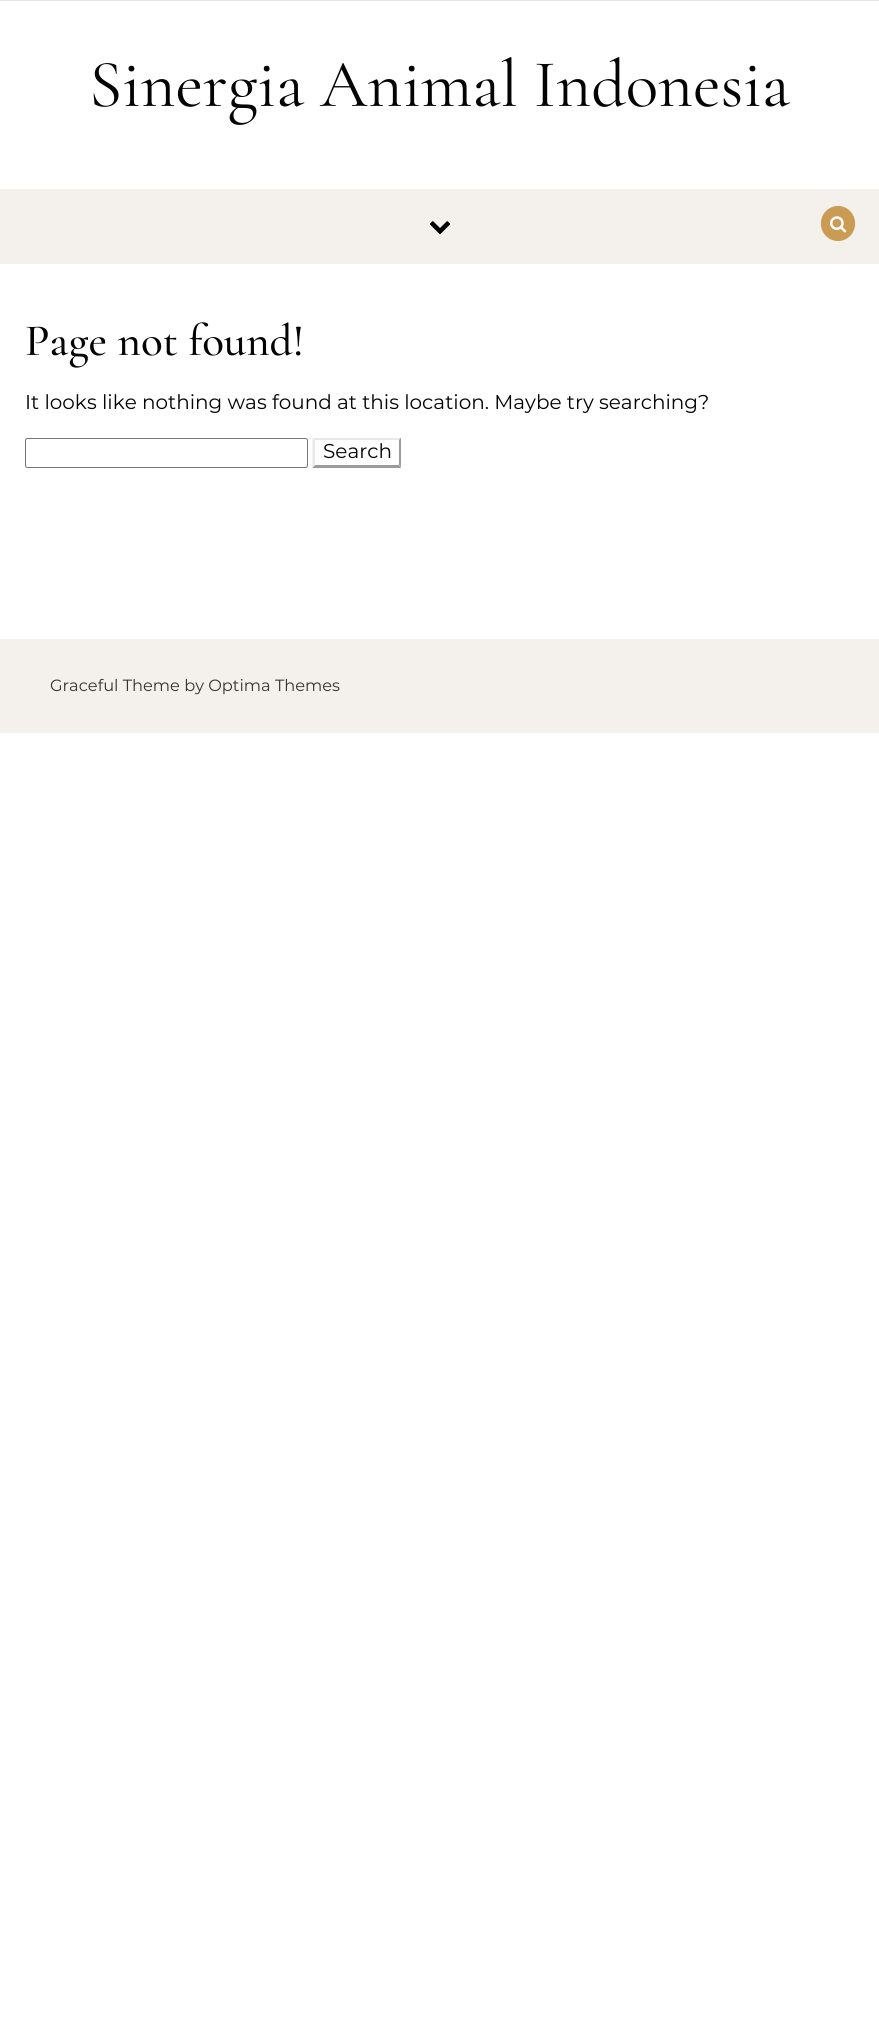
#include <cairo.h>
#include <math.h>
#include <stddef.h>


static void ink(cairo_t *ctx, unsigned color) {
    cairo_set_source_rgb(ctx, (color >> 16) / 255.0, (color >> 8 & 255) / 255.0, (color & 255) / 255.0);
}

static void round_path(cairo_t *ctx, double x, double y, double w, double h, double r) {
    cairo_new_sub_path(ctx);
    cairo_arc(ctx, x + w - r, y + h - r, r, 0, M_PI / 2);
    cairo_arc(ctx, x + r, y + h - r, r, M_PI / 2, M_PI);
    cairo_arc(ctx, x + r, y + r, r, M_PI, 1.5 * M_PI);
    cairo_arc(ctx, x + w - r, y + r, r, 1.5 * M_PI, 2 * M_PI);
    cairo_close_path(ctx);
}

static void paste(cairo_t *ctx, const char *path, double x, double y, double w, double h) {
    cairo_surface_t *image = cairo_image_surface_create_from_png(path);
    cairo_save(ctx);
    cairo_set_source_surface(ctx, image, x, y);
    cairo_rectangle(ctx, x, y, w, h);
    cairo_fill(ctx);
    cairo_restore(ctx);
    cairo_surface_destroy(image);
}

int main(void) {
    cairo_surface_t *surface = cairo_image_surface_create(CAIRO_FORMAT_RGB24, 879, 2018);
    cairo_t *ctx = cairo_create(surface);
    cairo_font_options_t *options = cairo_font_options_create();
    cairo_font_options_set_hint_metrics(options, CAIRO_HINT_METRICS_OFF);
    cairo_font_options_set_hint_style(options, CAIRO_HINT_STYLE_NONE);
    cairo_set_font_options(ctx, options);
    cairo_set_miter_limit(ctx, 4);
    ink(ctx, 0xFFFFFF);
    cairo_paint(ctx);
    ink(ctx, 0xE4E4E4);
    cairo_rectangle(ctx, 0, 0, 879, 1);
    cairo_fill(ctx);
    cairo_select_font_face(ctx, "Cormorant Garamond", CAIRO_FONT_SLANT_NORMAL, CAIRO_FONT_WEIGHT_NORMAL);
    cairo_set_font_size(ctx, 67.5);
    ink(ctx, 0x030303);
    cairo_move_to(ctx, 89, 106);
    cairo_show_text(ctx, "Sinergia Animal Indonesia");
    ink(ctx, 0xF4F1EC);
    cairo_rectangle(ctx, 0, 189, 879, 75);
    cairo_fill(ctx);
    paste(ctx, "media/1.png", 429, 221, 22, 14);
    ink(ctx, 0xCA9B52);
    round_path(ctx, 821.5, 206.5, 33, 34, 16.5);
    cairo_fill_preserve(ctx);
    cairo_set_line_width(ctx, 1);
    cairo_stroke(ctx);
    paste(ctx, "media/2.png", 830, 216, 17, 17);
    cairo_select_font_face(ctx, "Cormorant Garamond Medium", CAIRO_FONT_SLANT_NORMAL, CAIRO_FONT_WEIGHT_NORMAL);
    cairo_set_font_size(ctx, 45);
    ink(ctx, 0x030303);
    cairo_move_to(ctx, 25, 355);
    cairo_show_text(ctx, "Page not found!");
    cairo_select_font_face(ctx, "Montserrat Thin", CAIRO_FONT_SLANT_NORMAL, CAIRO_FONT_WEIGHT_NORMAL);
    cairo_set_font_size(ctx, 20);
    cairo_move_to(ctx, 25, 409);
    cairo_show_text(ctx, "It looks like nothing was found at this location. Maybe try searching?");
    round_path(ctx, 25.5, 438.5, 282, 29, 2);
    ink(ctx, 0x767676);
    cairo_stroke(ctx);
    ink(ctx, 0xE8E8E8);
    cairo_new_path(ctx);
    cairo_move_to(ctx, 312, 438);
    cairo_line_to(ctx, 401, 438);
    cairo_line_to(ctx, 399, 440);
    cairo_line_to(ctx, 315, 440);
    cairo_close_path(ctx);
    cairo_fill(ctx);
    ink(ctx, 0x9B9B9B);
    cairo_new_path(ctx);
    cairo_move_to(ctx, 401, 437.5);
    cairo_line_to(ctx, 401, 467.5);
    cairo_line_to(ctx, 399, 465);
    cairo_line_to(ctx, 399, 440);
    cairo_close_path(ctx);
    cairo_fill(ctx);
    cairo_new_path(ctx);
    cairo_move_to(ctx, 401, 468);
    cairo_line_to(ctx, 312, 468);
    cairo_line_to(ctx, 315, 465);
    cairo_line_to(ctx, 399, 465);
    cairo_close_path(ctx);
    cairo_fill(ctx);
    ink(ctx, 0xE8E8E8);
    cairo_new_path(ctx);
    cairo_move_to(ctx, 312.5, 467.5);
    cairo_line_to(ctx, 312.5, 437.5);
    cairo_line_to(ctx, 315, 440);
    cairo_line_to(ctx, 315, 465);
    cairo_close_path(ctx);
    cairo_fill(ctx);
    ink(ctx, 0x030303);
    cairo_move_to(ctx, 323, 458);
    cairo_show_text(ctx, "Search");
    ink(ctx, 0xF4F1EC);
    cairo_rectangle(ctx, 0, 639, 879, 94);
    cairo_fill(ctx);
    cairo_set_font_size(ctx, 16.25);
    ink(ctx, 0x333333);
    cairo_move_to(ctx, 50, 691);
    cairo_show_text(ctx, "Graceful Theme by Optima Themes");
    cairo_surface_write_to_png(surface, "image.png");
    cairo_font_options_destroy(options);
    cairo_destroy(ctx);
    cairo_surface_destroy(surface);
    return 0;
}
